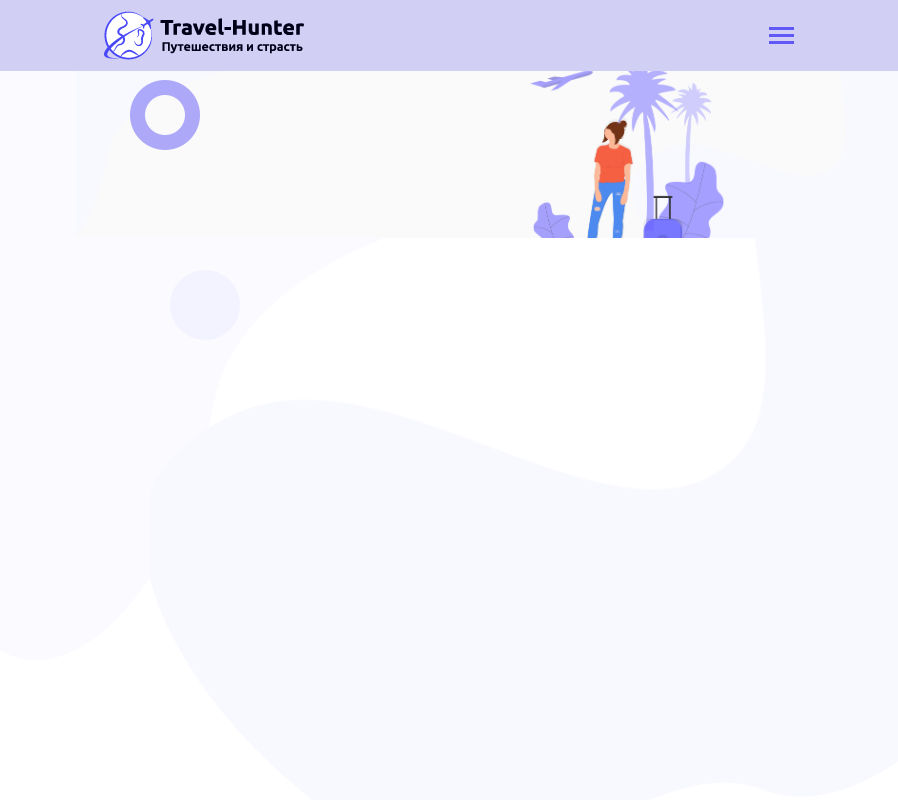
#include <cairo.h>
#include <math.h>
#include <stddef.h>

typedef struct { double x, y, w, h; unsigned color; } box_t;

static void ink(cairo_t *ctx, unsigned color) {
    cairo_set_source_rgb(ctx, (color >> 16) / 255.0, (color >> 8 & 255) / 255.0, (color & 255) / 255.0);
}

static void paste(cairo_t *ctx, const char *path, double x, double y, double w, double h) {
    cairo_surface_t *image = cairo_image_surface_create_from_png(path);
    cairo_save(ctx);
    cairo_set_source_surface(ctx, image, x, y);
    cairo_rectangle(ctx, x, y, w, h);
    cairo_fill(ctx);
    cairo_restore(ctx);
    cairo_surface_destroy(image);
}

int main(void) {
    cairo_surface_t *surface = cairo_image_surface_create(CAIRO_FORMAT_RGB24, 898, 800);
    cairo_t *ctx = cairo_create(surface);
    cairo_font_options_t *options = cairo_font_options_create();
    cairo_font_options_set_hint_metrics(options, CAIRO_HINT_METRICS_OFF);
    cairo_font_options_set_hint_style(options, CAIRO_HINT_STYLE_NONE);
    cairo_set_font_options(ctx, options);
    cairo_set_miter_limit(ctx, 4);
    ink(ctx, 0xFFFFFF);
    cairo_paint(ctx);
    ink(ctx, 0xD1CFF4);
    cairo_rectangle(ctx, 0, 0, 898, 71);
    cairo_fill(ctx);
    paste(ctx, "media/1.png", 104, 11, 200, 49);
    {
        static const box_t items[] = {
            {769, 27, 25, 3, 0x6059F6},
            {769, 34, 25, 3, 0x6059F6},
            {769, 41, 25, 3, 0x6059F6},
        };
        for (size_t i = 0; i < sizeof items / sizeof *items; i++) {
            ink(ctx, items[i].color);
            cairo_rectangle(ctx, items[i].x, items[i].y, items[i].w, items[i].h);
            cairo_fill(ctx);
        }
    }
    paste(ctx, "media/3.png", 0, 71, 386, 589);
    paste(ctx, "media/4.png", 150, 71, 748, 729);
    paste(ctx, "media/2.png", 76, 71, 786, 167);
    cairo_arc(ctx, 165, 115, 27.5, 0, 2 * M_PI);
    cairo_set_source_rgba(ctx, 0.376, 0.349, 0.965, 0.5);
    cairo_set_line_width(ctx, 15);
    cairo_stroke(ctx);
    ink(ctx, 0xF3F3FF);
    cairo_arc(ctx, 205, 305, 35, 0, 2 * M_PI);
    cairo_fill(ctx);
    cairo_surface_write_to_png(surface, "image.png");
    cairo_font_options_destroy(options);
    cairo_destroy(ctx);
    cairo_surface_destroy(surface);
    return 0;
}
